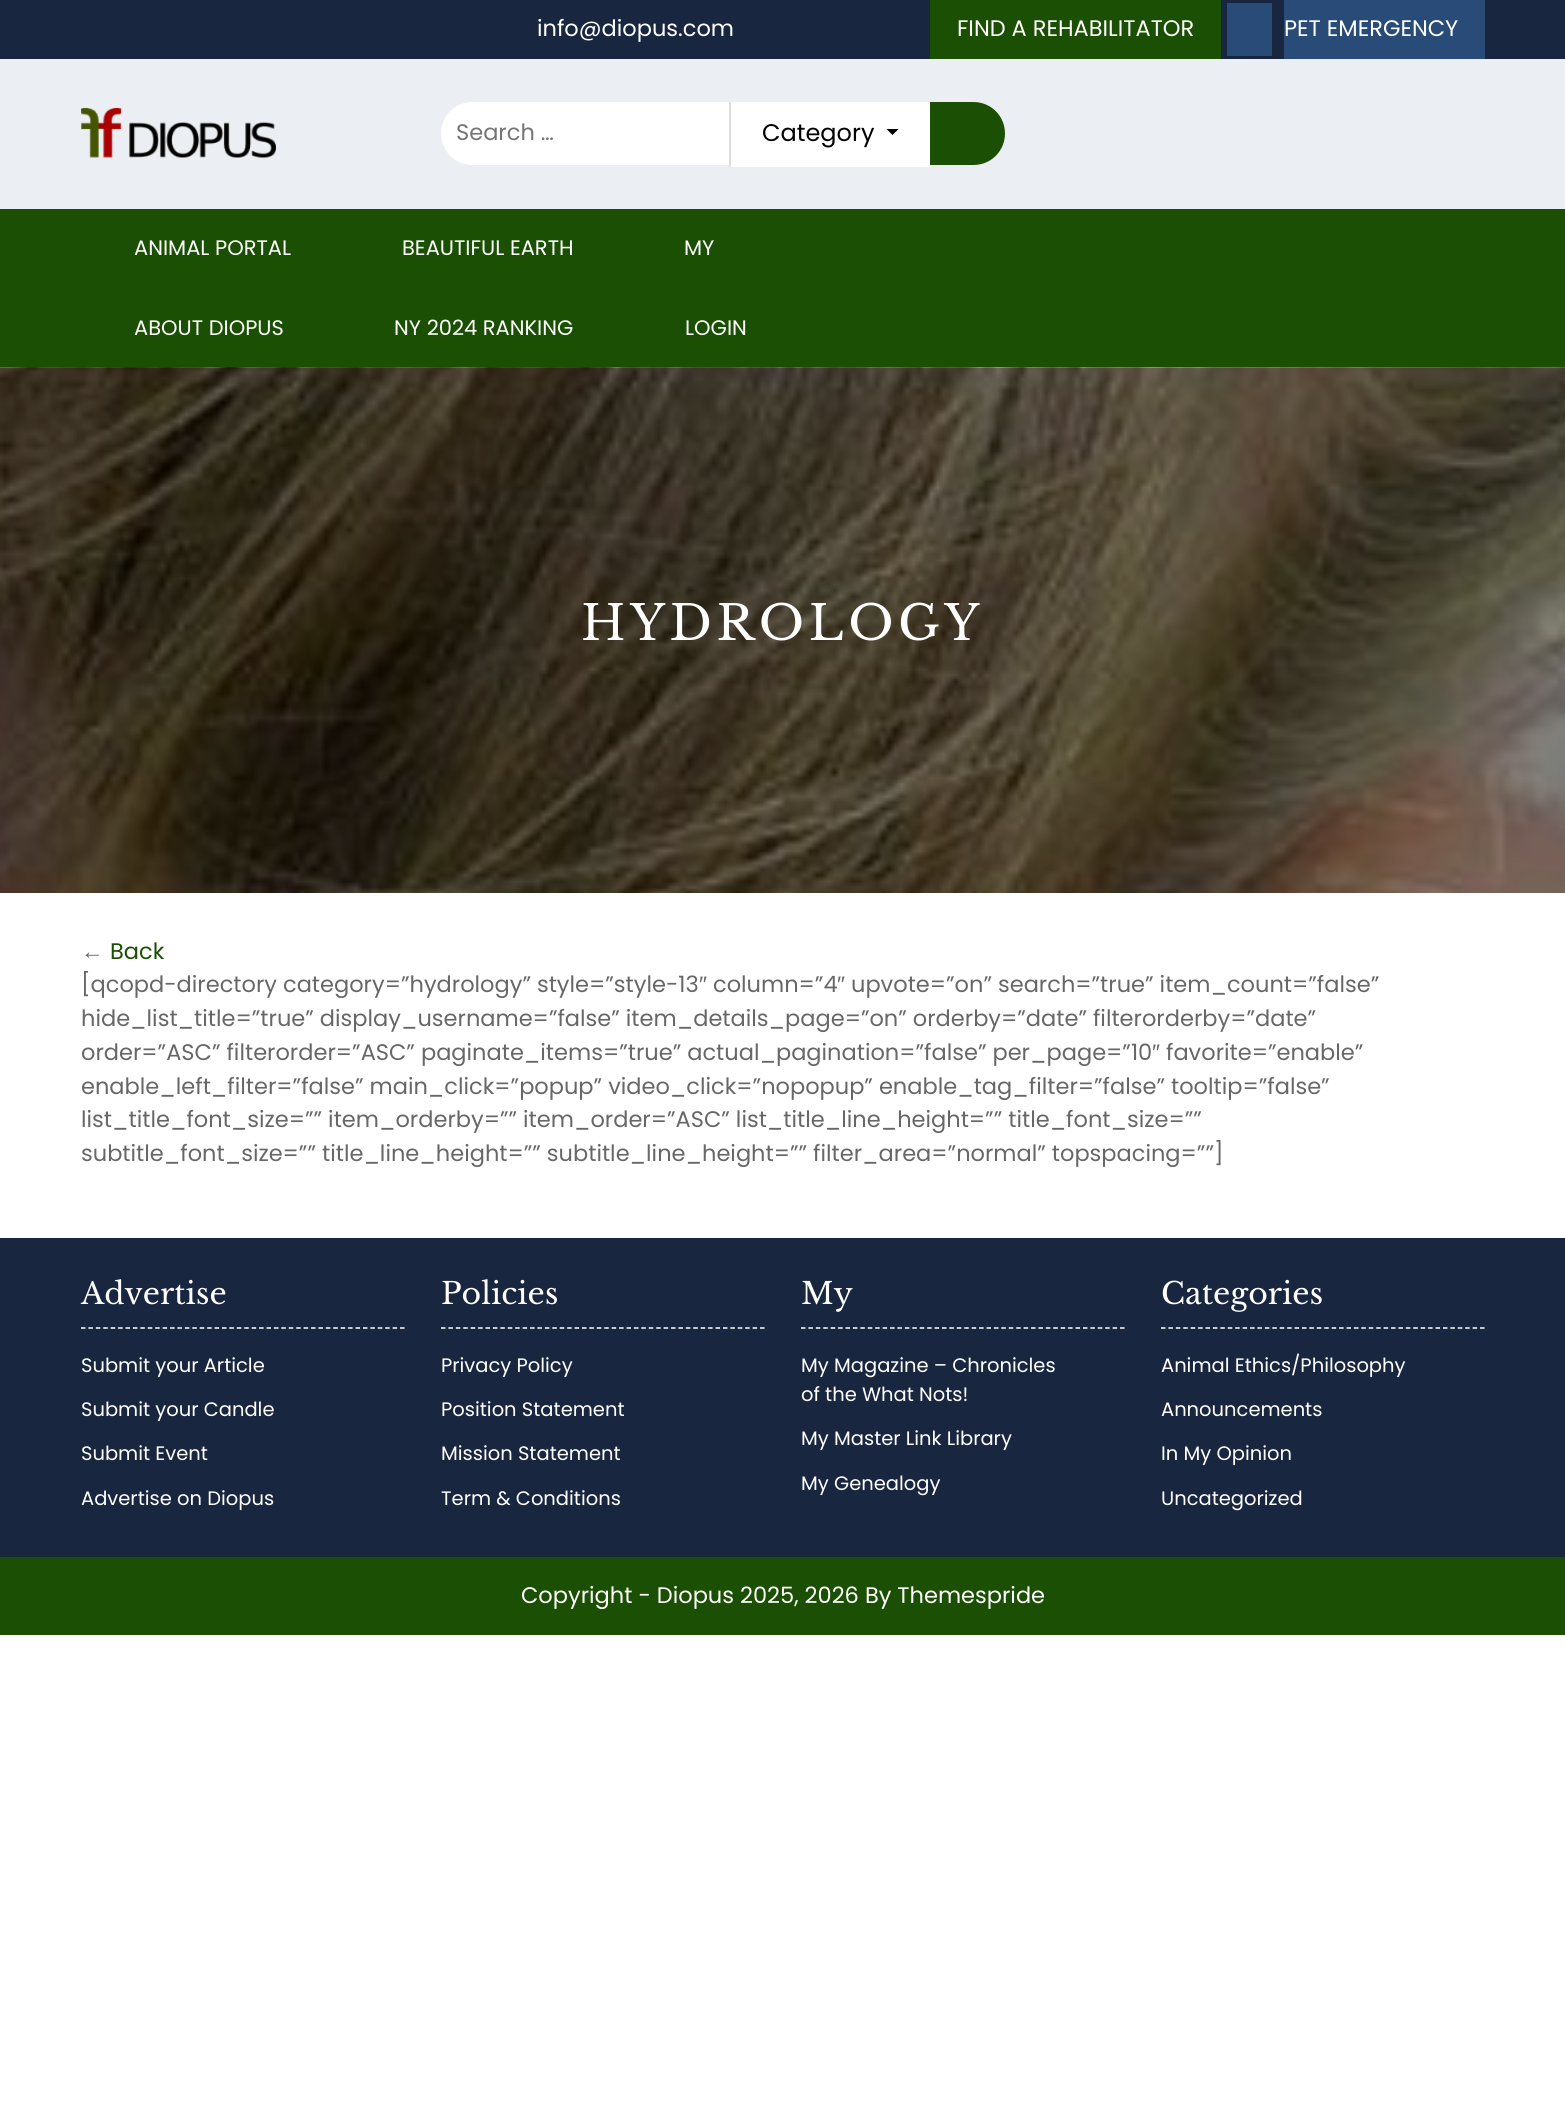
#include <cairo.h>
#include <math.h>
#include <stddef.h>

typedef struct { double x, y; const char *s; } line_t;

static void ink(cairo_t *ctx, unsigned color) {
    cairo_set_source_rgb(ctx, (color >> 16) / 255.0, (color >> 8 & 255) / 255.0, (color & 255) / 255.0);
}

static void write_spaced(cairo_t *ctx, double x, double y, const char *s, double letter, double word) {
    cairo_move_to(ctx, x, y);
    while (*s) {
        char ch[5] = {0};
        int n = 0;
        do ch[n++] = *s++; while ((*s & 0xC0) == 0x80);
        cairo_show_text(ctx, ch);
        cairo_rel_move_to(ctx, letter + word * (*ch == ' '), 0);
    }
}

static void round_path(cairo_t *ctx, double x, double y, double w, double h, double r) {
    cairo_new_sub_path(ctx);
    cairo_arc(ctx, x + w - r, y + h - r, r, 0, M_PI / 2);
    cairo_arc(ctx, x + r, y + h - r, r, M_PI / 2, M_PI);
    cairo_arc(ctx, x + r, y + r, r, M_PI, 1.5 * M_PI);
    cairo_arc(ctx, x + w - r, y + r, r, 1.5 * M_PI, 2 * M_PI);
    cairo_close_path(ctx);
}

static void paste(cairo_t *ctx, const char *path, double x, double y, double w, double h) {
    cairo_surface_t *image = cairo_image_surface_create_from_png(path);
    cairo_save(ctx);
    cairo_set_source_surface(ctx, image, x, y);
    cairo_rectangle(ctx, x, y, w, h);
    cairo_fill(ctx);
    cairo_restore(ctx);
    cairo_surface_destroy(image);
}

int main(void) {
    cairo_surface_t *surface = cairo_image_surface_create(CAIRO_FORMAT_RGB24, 1565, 2113);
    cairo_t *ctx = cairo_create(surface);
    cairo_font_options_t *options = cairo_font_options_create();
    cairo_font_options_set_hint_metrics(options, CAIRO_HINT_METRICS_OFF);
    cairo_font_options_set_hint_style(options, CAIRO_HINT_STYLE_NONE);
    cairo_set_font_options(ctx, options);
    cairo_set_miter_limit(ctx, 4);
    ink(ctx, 0xFFFFFF);
    cairo_paint(ctx);
    ink(ctx, 0x192640);
    cairo_rectangle(ctx, 0, 0, 1565, 59);
    cairo_fill(ctx);
    cairo_select_font_face(ctx, "Poppins", CAIRO_FONT_SLANT_NORMAL, CAIRO_FONT_WEIGHT_NORMAL);
    cairo_set_font_size(ctx, 22.5);
    ink(ctx, 0xFFFFFF);
    cairo_move_to(ctx, 537, 36);
    cairo_show_text(ctx, "info@diopus.com");
    ink(ctx, 0x1B4F03);
    cairo_rectangle(ctx, 930, 0, 291, 59);
    cairo_fill(ctx);
    ink(ctx, 0xFFFFFF);
    cairo_move_to(ctx, 957, 36);
    cairo_show_text(ctx, "FIND A REHABILITATOR");
    ink(ctx, 0x294B77);
    cairo_rectangle(ctx, 1284, 0, 201, 59);
    cairo_fill(ctx);
    ink(ctx, 0xFFFFFF);
    cairo_move_to(ctx, 1284, 36);
    cairo_show_text(ctx, "PET EMERGENCY");
    ink(ctx, 0x294B77);
    cairo_rectangle(ctx, 1227, 3, 45, 53);
    cairo_fill(ctx);
    ink(ctx, 0xEBEEF2);
    cairo_rectangle(ctx, 0, 59, 1565, 150);
    cairo_fill(ctx);
    paste(ctx, "media/1.png", 81, 108, 195, 50);
    ink(ctx, 0xFFFFFF);
    round_path(ctx, 441, 102, 564, 63, 31.5);
    cairo_fill(ctx);
    ink(ctx, 0x757575);
    cairo_move_to(ctx, 456, 140);
    cairo_show_text(ctx, "Search …");
    ink(ctx, 0x1B4F03);
    cairo_new_path(ctx);
    cairo_move_to(ctx, 930, 102);
    cairo_line_to(ctx, 973.5, 102);
    cairo_curve_to(ctx, 991, 102, 1005, 116, 1005, 133.5);
    cairo_curve_to(ctx, 1005, 151, 991, 165, 973.5, 165);
    cairo_line_to(ctx, 930, 165);
    cairo_close_path(ctx);
    cairo_fill(ctx);
    ink(ctx, 0xFFFFFF);
    cairo_rectangle(ctx, 731, 165, 199, 2);
    cairo_fill(ctx);
    ink(ctx, 0xDDDDDD);
    cairo_rectangle(ctx, 729, 102, 2, 65);
    cairo_fill(ctx);
    cairo_set_font_size(ctx, 24);
    ink(ctx, 0x000000);
    cairo_move_to(ctx, 762, 141);
    cairo_show_text(ctx, "Category");
    cairo_new_path(ctx);
    cairo_move_to(ctx, 886.5, 129);
    cairo_line_to(ctx, 898.5, 129);
    cairo_line_to(ctx, 892.5, 135);
    cairo_close_path(ctx);
    cairo_fill(ctx);
    ink(ctx, 0x1B4F03);
    cairo_rectangle(ctx, 0, 209, 1565, 158);
    cairo_fill(ctx);
    cairo_set_font_size(ctx, 21);
    ink(ctx, 0xFFFFFF);
    {
        static const line_t items[] = {
            {134, 255, "ANIMAL PORTAL"},
            {402, 255, "BEAUTIFUL EARTH"},
            {684, 255, "MY"},
            {134, 335, "ABOUT DIOPUS"},
            {394, 335, "NY 2024 RANKING"},
            {685, 335, "LOGIN"},
        };
        for (size_t i = 0; i < sizeof items / sizeof *items; i++) {
            cairo_move_to(ctx, items[i].x, items[i].y);
            cairo_show_text(ctx, items[i].s);
        }
    }
    paste(ctx, "media/2.png", 0, 367, 1565, 1);
    ink(ctx, 0x000000);
    cairo_rectangle(ctx, 0, 368, 1565, 525);
    cairo_fill(ctx);
    paste(ctx, "media/3.png", 0, 368, 1565, 525);
    cairo_select_font_face(ctx, "Libre Baskerville", CAIRO_FONT_SLANT_NORMAL, CAIRO_FONT_WEIGHT_NORMAL);
    cairo_set_font_size(ctx, 48);
    ink(ctx, 0xFFFFFF);
    write_spaced(ctx, 581, 640, "HYDROLOGY", 4.5, 0);
    cairo_select_font_face(ctx, "Liberation Sans", CAIRO_FONT_SLANT_NORMAL, CAIRO_FONT_WEIGHT_NORMAL);
    cairo_set_font_size(ctx, 22.5);
    ink(ctx, 0x676767);
    cairo_move_to(ctx, 81, 959);
    cairo_show_text(ctx, "←");
    cairo_select_font_face(ctx, "Poppins", CAIRO_FONT_SLANT_NORMAL, CAIRO_FONT_WEIGHT_NORMAL);
    ink(ctx, 0x1B4F03);
    cairo_move_to(ctx, 110, 959);
    cairo_show_text(ctx, "Back");
    ink(ctx, 0x676767);
    cairo_move_to(ctx, 81, 992);
    cairo_show_text(ctx, "[qcopd-directory category=”hydrology” style=”style-13");
    cairo_select_font_face(ctx, "Liberation Sans", CAIRO_FONT_SLANT_NORMAL, CAIRO_FONT_WEIGHT_NORMAL);
    cairo_move_to(ctx, 699, 992);
    cairo_show_text(ctx, "″");
    cairo_select_font_face(ctx, "Poppins", CAIRO_FONT_SLANT_NORMAL, CAIRO_FONT_WEIGHT_NORMAL);
    cairo_move_to(ctx, 713, 992);
    cairo_show_text(ctx, "column=”4");
    cairo_select_font_face(ctx, "Liberation Sans", CAIRO_FONT_SLANT_NORMAL, CAIRO_FONT_WEIGHT_NORMAL);
    cairo_move_to(ctx, 837, 992);
    cairo_show_text(ctx, "″");
    cairo_select_font_face(ctx, "Poppins", CAIRO_FONT_SLANT_NORMAL, CAIRO_FONT_WEIGHT_NORMAL);
    {
        static const line_t items[] = {
            {851, 992, "upvote=”on” search=”true” item_count=”false”"},
            {81, 1026, "hide_list_title=”true” display_username=”false” item_details_page=”on” orderby=”date” filterorderby=”date”"},
            {81, 1060, "order=”ASC” filterorder=”ASC” paginate_items=”true” actual_pagination=”false” per_page=”10"},
        };
        for (size_t i = 0; i < sizeof items / sizeof *items; i++) {
            cairo_move_to(ctx, items[i].x, items[i].y);
            cairo_show_text(ctx, items[i].s);
        }
    }
    cairo_select_font_face(ctx, "Liberation Sans", CAIRO_FONT_SLANT_NORMAL, CAIRO_FONT_WEIGHT_NORMAL);
    cairo_move_to(ctx, 1152, 1060);
    cairo_show_text(ctx, "″");
    cairo_select_font_face(ctx, "Poppins", CAIRO_FONT_SLANT_NORMAL, CAIRO_FONT_WEIGHT_NORMAL);
    {
        static const line_t items[] = {
            {1166, 1060, "favorite=”enable”"},
            {81, 1094, "enable_left_filter=”false” main_click=”popup” video_click=”nopopup” enable_tag_filter=”false” tooltip=”false”"},
            {81, 1127, "list_title_font_size=”” item_orderby=”” item_order=”ASC” list_title_line_height=”” title_font_size=””"},
            {81, 1161, "subtitle_font_size=”” title_line_height=”” subtitle_line_height=”” filter_area=”normal” topspacing=””]"},
        };
        for (size_t i = 0; i < sizeof items / sizeof *items; i++) {
            cairo_move_to(ctx, items[i].x, items[i].y);
            cairo_show_text(ctx, items[i].s);
        }
    }
    ink(ctx, 0x192640);
    cairo_rectangle(ctx, 0, 1238, 1565, 319);
    cairo_fill(ctx);
    cairo_new_path(ctx);
    cairo_move_to(ctx, 81, 1328);
    cairo_line_to(ctx, 405, 1328);
    ink(ctx, 0xFFFFFF);
    cairo_set_line_width(ctx, 1.5);
    cairo_set_dash(ctx, (double[]){4.5, 2.92}, 2, 0);
    cairo_stroke(ctx);
    cairo_select_font_face(ctx, "Libre Baskerville", CAIRO_FONT_SLANT_NORMAL, CAIRO_FONT_WEIGHT_NORMAL);
    cairo_set_font_size(ctx, 30);
    cairo_move_to(ctx, 81, 1304);
    cairo_show_text(ctx, "Advertise");
    cairo_select_font_face(ctx, "Poppins", CAIRO_FONT_SLANT_NORMAL, CAIRO_FONT_WEIGHT_NORMAL);
    cairo_set_font_size(ctx, 19.5);
    {
        static const line_t items[] = {
            {81, 1372, "Submit your Article"},
            {81, 1416, "Submit your Candle"},
            {81, 1460, "Submit Event"},
            {81, 1505, "Advertise on Diopus"},
        };
        for (size_t i = 0; i < sizeof items / sizeof *items; i++) {
            cairo_move_to(ctx, items[i].x, items[i].y);
            cairo_show_text(ctx, items[i].s);
        }
    }
    cairo_new_path(ctx);
    cairo_move_to(ctx, 441, 1328);
    cairo_line_to(ctx, 765, 1328);
    cairo_stroke(ctx);
    cairo_select_font_face(ctx, "Libre Baskerville", CAIRO_FONT_SLANT_NORMAL, CAIRO_FONT_WEIGHT_NORMAL);
    cairo_set_font_size(ctx, 30);
    cairo_move_to(ctx, 441, 1304);
    cairo_show_text(ctx, "Policies");
    cairo_select_font_face(ctx, "Poppins", CAIRO_FONT_SLANT_NORMAL, CAIRO_FONT_WEIGHT_NORMAL);
    cairo_set_font_size(ctx, 19.5);
    {
        static const line_t items[] = {
            {441, 1372, "Privacy Policy"},
            {441, 1416, "Position Statement"},
            {441, 1460, "Mission Statement"},
            {441, 1505, "Term & Conditions"},
        };
        for (size_t i = 0; i < sizeof items / sizeof *items; i++) {
            cairo_move_to(ctx, items[i].x, items[i].y);
            cairo_show_text(ctx, items[i].s);
        }
    }
    cairo_new_path(ctx);
    cairo_move_to(ctx, 801, 1328);
    cairo_line_to(ctx, 1125, 1328);
    cairo_stroke(ctx);
    cairo_select_font_face(ctx, "Libre Baskerville", CAIRO_FONT_SLANT_NORMAL, CAIRO_FONT_WEIGHT_NORMAL);
    cairo_set_font_size(ctx, 30);
    cairo_move_to(ctx, 801, 1304);
    cairo_show_text(ctx, "My");
    cairo_select_font_face(ctx, "Poppins", CAIRO_FONT_SLANT_NORMAL, CAIRO_FONT_WEIGHT_NORMAL);
    cairo_set_font_size(ctx, 19.5);
    {
        static const line_t items[] = {
            {801, 1372, "My Magazine – Chronicles"},
            {801, 1401, "of the What Nots!"},
            {801, 1445, "My Master Link Library"},
            {801, 1490, "My Genealogy"},
        };
        for (size_t i = 0; i < sizeof items / sizeof *items; i++) {
            cairo_move_to(ctx, items[i].x, items[i].y);
            cairo_show_text(ctx, items[i].s);
        }
    }
    cairo_new_path(ctx);
    cairo_move_to(ctx, 1161, 1328);
    cairo_line_to(ctx, 1485, 1328);
    cairo_stroke(ctx);
    cairo_select_font_face(ctx, "Libre Baskerville", CAIRO_FONT_SLANT_NORMAL, CAIRO_FONT_WEIGHT_NORMAL);
    cairo_set_font_size(ctx, 30);
    cairo_move_to(ctx, 1161, 1304);
    cairo_show_text(ctx, "Categories");
    cairo_select_font_face(ctx, "Poppins", CAIRO_FONT_SLANT_NORMAL, CAIRO_FONT_WEIGHT_NORMAL);
    cairo_set_font_size(ctx, 19.5);
    {
        static const line_t items[] = {
            {1161, 1372, "Animal Ethics/Philosophy"},
            {1161, 1416, "Announcements"},
            {1161, 1460, "In My Opinion"},
            {1161, 1505, "Uncategorized"},
        };
        for (size_t i = 0; i < sizeof items / sizeof *items; i++) {
            cairo_move_to(ctx, items[i].x, items[i].y);
            cairo_show_text(ctx, items[i].s);
        }
    }
    ink(ctx, 0x1B4F03);
    cairo_rectangle(ctx, 0, 1557, 1565, 78);
    cairo_fill(ctx);
    cairo_set_font_size(ctx, 22.5);
    ink(ctx, 0xFFFFFF);
    cairo_move_to(ctx, 521, 1603);
    cairo_show_text(ctx, "Copyright - Diopus 2025, 2026 By Themespride");
    cairo_surface_write_to_png(surface, "image.png");
    cairo_font_options_destroy(options);
    cairo_destroy(ctx);
    cairo_surface_destroy(surface);
    return 0;
}
